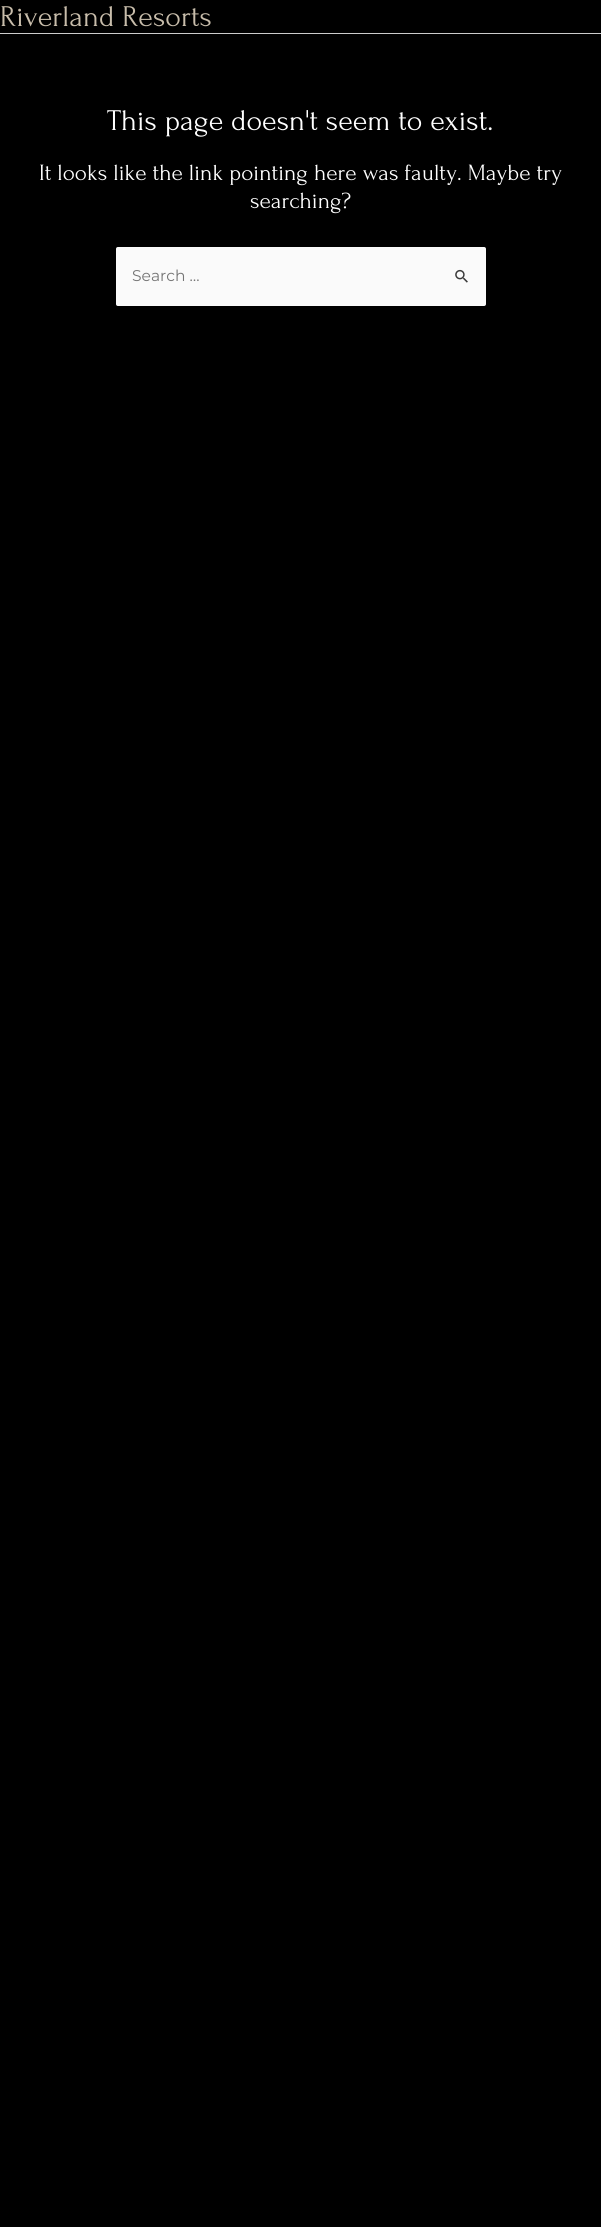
#include <cairo.h>
#include <math.h>
#include <stddef.h>


static void ink(cairo_t *ctx, unsigned color) {
    cairo_set_source_rgb(ctx, (color >> 16) / 255.0, (color >> 8 & 255) / 255.0, (color & 255) / 255.0);
}

static void round_path(cairo_t *ctx, double x, double y, double w, double h, double r) {
    cairo_new_sub_path(ctx);
    cairo_arc(ctx, x + w - r, y + h - r, r, 0, M_PI / 2);
    cairo_arc(ctx, x + r, y + h - r, r, M_PI / 2, M_PI);
    cairo_arc(ctx, x + r, y + r, r, M_PI, 1.5 * M_PI);
    cairo_arc(ctx, x + w - r, y + r, r, 1.5 * M_PI, 2 * M_PI);
    cairo_close_path(ctx);
}

static void paste(cairo_t *ctx, const char *path, double x, double y, double w, double h) {
    cairo_surface_t *image = cairo_image_surface_create_from_png(path);
    cairo_save(ctx);
    cairo_set_source_surface(ctx, image, x, y);
    cairo_rectangle(ctx, x, y, w, h);
    cairo_fill(ctx);
    cairo_restore(ctx);
    cairo_surface_destroy(image);
}

int main(void) {
    cairo_surface_t *surface = cairo_image_surface_create(CAIRO_FORMAT_RGB24, 601, 2227);
    cairo_t *ctx = cairo_create(surface);
    cairo_font_options_t *options = cairo_font_options_create();
    cairo_font_options_set_hint_metrics(options, CAIRO_HINT_METRICS_OFF);
    cairo_font_options_set_hint_style(options, CAIRO_HINT_STYLE_NONE);
    cairo_set_font_options(ctx, options);
    cairo_set_miter_limit(ctx, 4);
    ink(ctx, 0x000000);
    cairo_paint(ctx);
    cairo_select_font_face(ctx, "Forum", CAIRO_FONT_SLANT_NORMAL, CAIRO_FONT_WEIGHT_NORMAL);
    cairo_set_font_size(ctx, 30);
    ink(ctx, 0xC8BDAB);
    cairo_move_to(ctx, 0, 26);
    cairo_show_text(ctx, "Riverland Resorts");
    ink(ctx, 0xCCCCCC);
    cairo_rectangle(ctx, 0, 33, 601, 1);
    cairo_fill(ctx);
    ink(ctx, 0xFFFFFF);
    cairo_move_to(ctx, 107, 130);
    cairo_show_text(ctx, "This page doesn't seem to exist.");
    cairo_set_font_size(ctx, 23.25);
    cairo_move_to(ctx, 39, 180);
    cairo_show_text(ctx, "It looks like the link pointing here was faulty. Maybe try");
    cairo_move_to(ctx, 250, 208);
    cairo_show_text(ctx, "searching?");
    ink(ctx, 0xFAFAFA);
    round_path(ctx, 116, 247, 370, 59, 2);
    cairo_fill(ctx);
    round_path(ctx, 116.5, 247.5, 369, 58, 1.5);
    cairo_set_source_rgba(ctx, 1, 1, 1, 0.24);
    cairo_set_line_width(ctx, 1);
    cairo_stroke(ctx);
    cairo_select_font_face(ctx, "Montserrat Thin", CAIRO_FONT_SLANT_NORMAL, CAIRO_FONT_WEIGHT_NORMAL);
    cairo_set_font_size(ctx, 15.5);
    ink(ctx, 0x757575);
    cairo_move_to(ctx, 132, 281);
    cairo_show_text(ctx, "Search …");
    paste(ctx, "media/1.png", 455, 269, 13, 14);
    cairo_surface_write_to_png(surface, "image.png");
    cairo_font_options_destroy(options);
    cairo_destroy(ctx);
    cairo_surface_destroy(surface);
    return 0;
}
